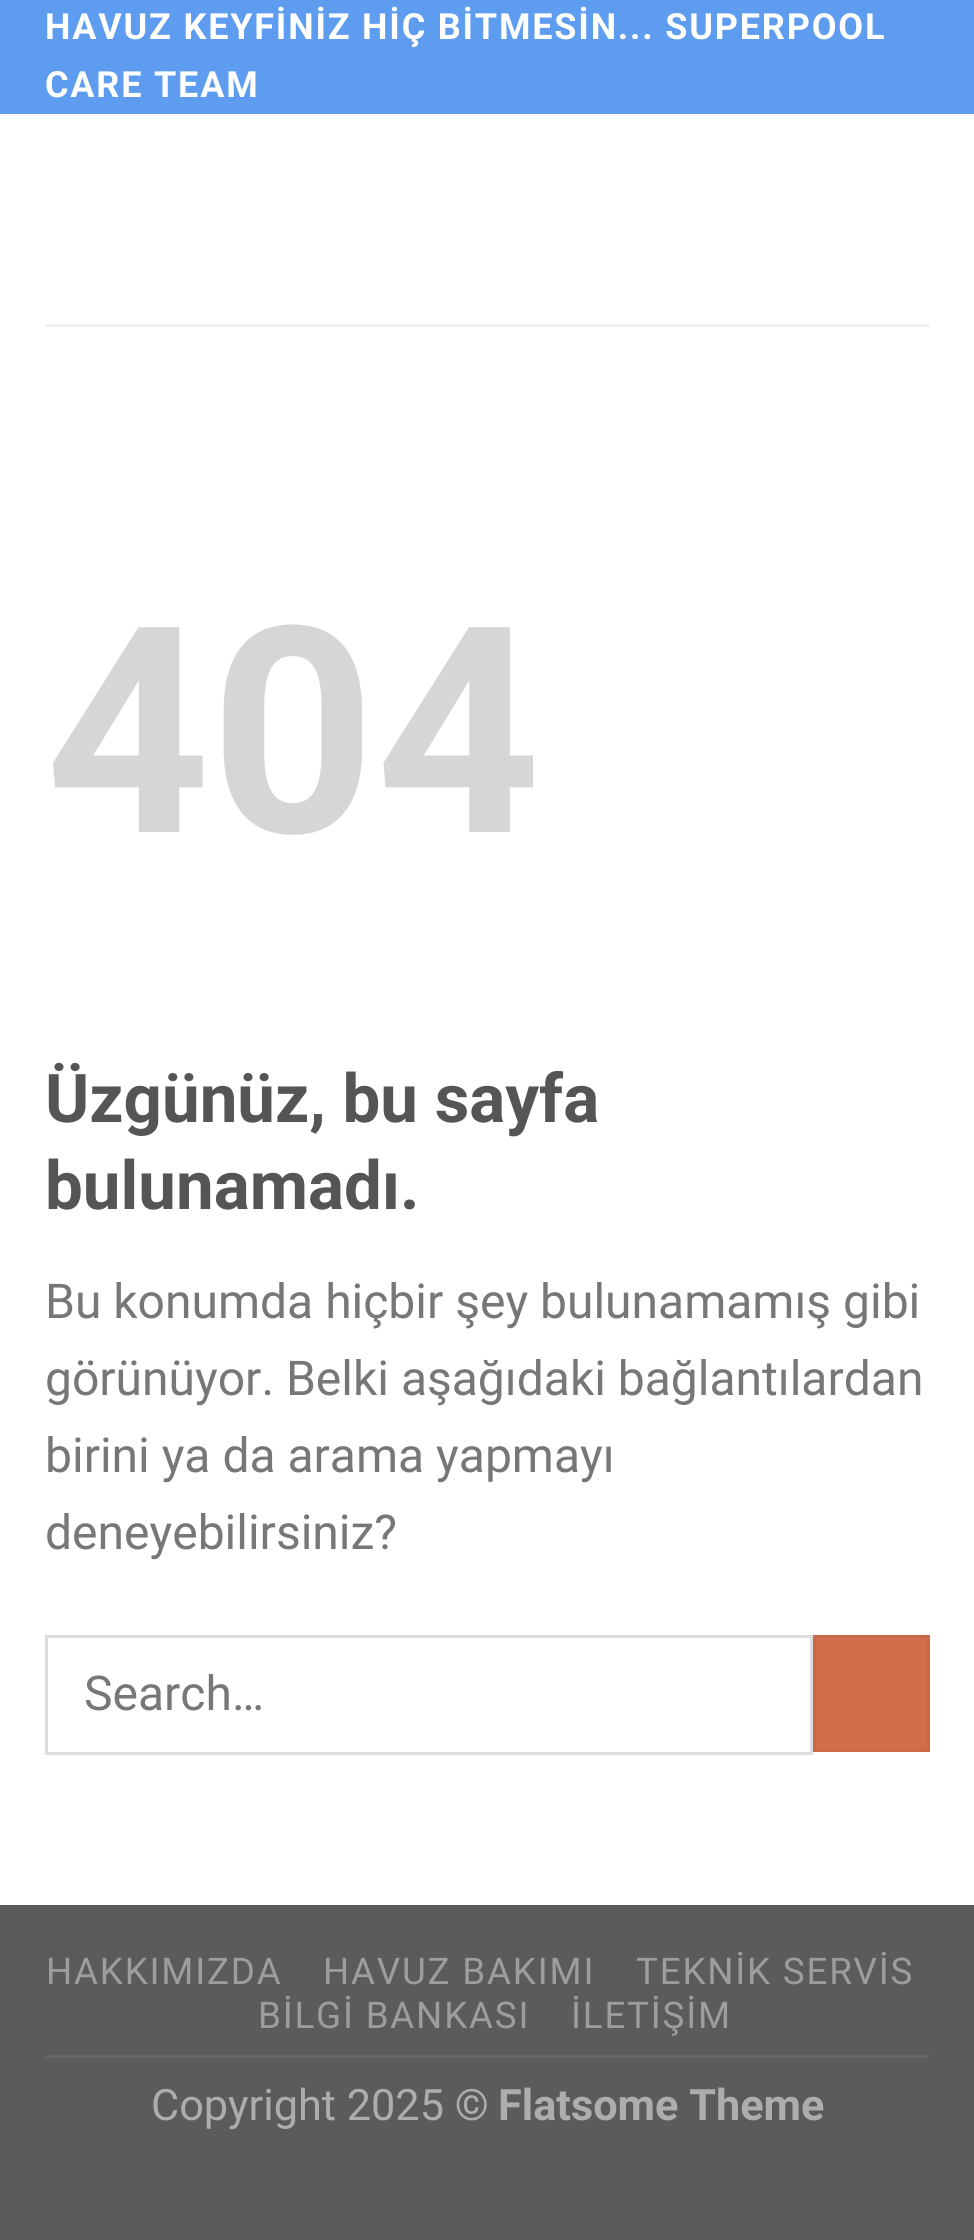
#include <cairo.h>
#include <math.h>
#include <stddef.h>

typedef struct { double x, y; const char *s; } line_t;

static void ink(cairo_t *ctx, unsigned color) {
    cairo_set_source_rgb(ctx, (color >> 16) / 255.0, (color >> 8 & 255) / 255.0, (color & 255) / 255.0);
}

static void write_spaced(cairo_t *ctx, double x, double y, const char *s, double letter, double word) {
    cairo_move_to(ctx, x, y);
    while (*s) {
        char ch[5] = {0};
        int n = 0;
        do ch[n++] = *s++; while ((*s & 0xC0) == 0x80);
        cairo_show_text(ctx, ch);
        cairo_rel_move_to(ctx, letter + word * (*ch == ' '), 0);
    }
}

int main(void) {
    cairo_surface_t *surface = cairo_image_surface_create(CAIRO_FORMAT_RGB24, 974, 2240);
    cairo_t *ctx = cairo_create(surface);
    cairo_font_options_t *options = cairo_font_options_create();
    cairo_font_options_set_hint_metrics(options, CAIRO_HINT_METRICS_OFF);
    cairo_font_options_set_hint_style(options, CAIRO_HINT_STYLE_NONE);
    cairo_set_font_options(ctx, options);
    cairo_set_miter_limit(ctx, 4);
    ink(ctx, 0x5B5B5B);
    cairo_paint(ctx);
    ink(ctx, 0xFFFFFF);
    cairo_rectangle(ctx, 0, 114, 974, 1791);
    cairo_fill(ctx);
    ink(ctx, 0x5D9CEE);
    cairo_rectangle(ctx, 0, 0, 974, 114);
    cairo_fill(ctx);
    cairo_select_font_face(ctx, "Roboto", CAIRO_FONT_SLANT_NORMAL, CAIRO_FONT_WEIGHT_BOLD);
    cairo_set_font_size(ctx, 36);
    ink(ctx, 0xFFFFFF);
    write_spaced(ctx, 45, 39, "HAVUZ KEYFİNİZ HİÇ BİTMESİN... SUPERPOOL", 1.8, 0);
    write_spaced(ctx, 45, 97, "CARE TEAM", 1.8, 0);
    ink(ctx, 0xF1F1F1);
    cairo_rectangle(ctx, 45, 324, 885, 3);
    cairo_fill(ctx);
    cairo_set_font_size(ctx, 288);
    ink(ctx, 0xD6D6D6);
    cairo_move_to(ctx, 45, 832);
    cairo_show_text(ctx, "404");
    cairo_set_font_size(ctx, 67.25);
    ink(ctx, 0x555555);
    cairo_move_to(ctx, 45, 1122);
    cairo_show_text(ctx, "Üzgünüz, bu sayfa");
    cairo_move_to(ctx, 45, 1209);
    cairo_show_text(ctx, "bulunamadı.");
    cairo_select_font_face(ctx, "Roboto", CAIRO_FONT_SLANT_NORMAL, CAIRO_FONT_WEIGHT_NORMAL);
    cairo_set_font_size(ctx, 48);
    ink(ctx, 0x777777);
    {
        static const line_t items[] = {
            {45, 1318, "Bu konumda hiçbir şey bulunamamış gibi"},
            {45, 1395, "görünüyor. Belki aşağıdaki bağlantılardan"},
            {45, 1472, "birini ya da arama yapmayı"},
            {45, 1549, "deneyebilirsiniz?"},
        };
        for (size_t i = 0; i < sizeof items / sizeof *items; i++) {
            cairo_move_to(ctx, items[i].x, items[i].y);
            cairo_show_text(ctx, items[i].s);
        }
    }
    cairo_rectangle(ctx, 46.5, 1636.5, 765, 117);
    ink(ctx, 0xDDDDDD);
    cairo_set_line_width(ctx, 3);
    cairo_stroke(ctx);
    ink(ctx, 0x777777);
    cairo_move_to(ctx, 84, 1710);
    cairo_show_text(ctx, "Search…");
    ink(ctx, 0xD26E4B);
    cairo_rectangle(ctx, 814.5, 1636.5, 114, 114);
    cairo_fill_preserve(ctx);
    ink(ctx, 0xC86947);
    cairo_stroke(ctx);
    ink(ctx, 0x656565);
    cairo_rectangle(ctx, 45, 2055, 885, 3);
    cairo_fill(ctx);
    cairo_set_font_size(ctx, 36.75);
    ink(ctx, 0x9D9D9D);
    {
        static const line_t items[] = {
            {46, 1984, "HAKKIMIZDA"},
            {323, 1984, "HAVUZ BAKIMI"},
            {636, 1984, "TEKNİK SERVİS"},
            {258, 2028, "BİLGİ BANKASI"},
            {571, 2028, "İLETİŞİM"},
        };
        for (size_t i = 0; i < sizeof items / sizeof *items; i++) {
            write_spaced(ctx, items[i].x, items[i].y, items[i].s, 1.8, 0);
        }
    }
    cairo_set_font_size(ctx, 43.25);
    ink(ctx, 0xADADAD);
    cairo_move_to(ctx, 151, 2120);
    cairo_show_text(ctx, "Copyright 2025 ©");
    cairo_select_font_face(ctx, "Roboto", CAIRO_FONT_SLANT_NORMAL, CAIRO_FONT_WEIGHT_BOLD);
    cairo_move_to(ctx, 498, 2120);
    cairo_show_text(ctx, "Flatsome Theme");
    cairo_surface_write_to_png(surface, "image.png");
    cairo_font_options_destroy(options);
    cairo_destroy(ctx);
    cairo_surface_destroy(surface);
    return 0;
}
